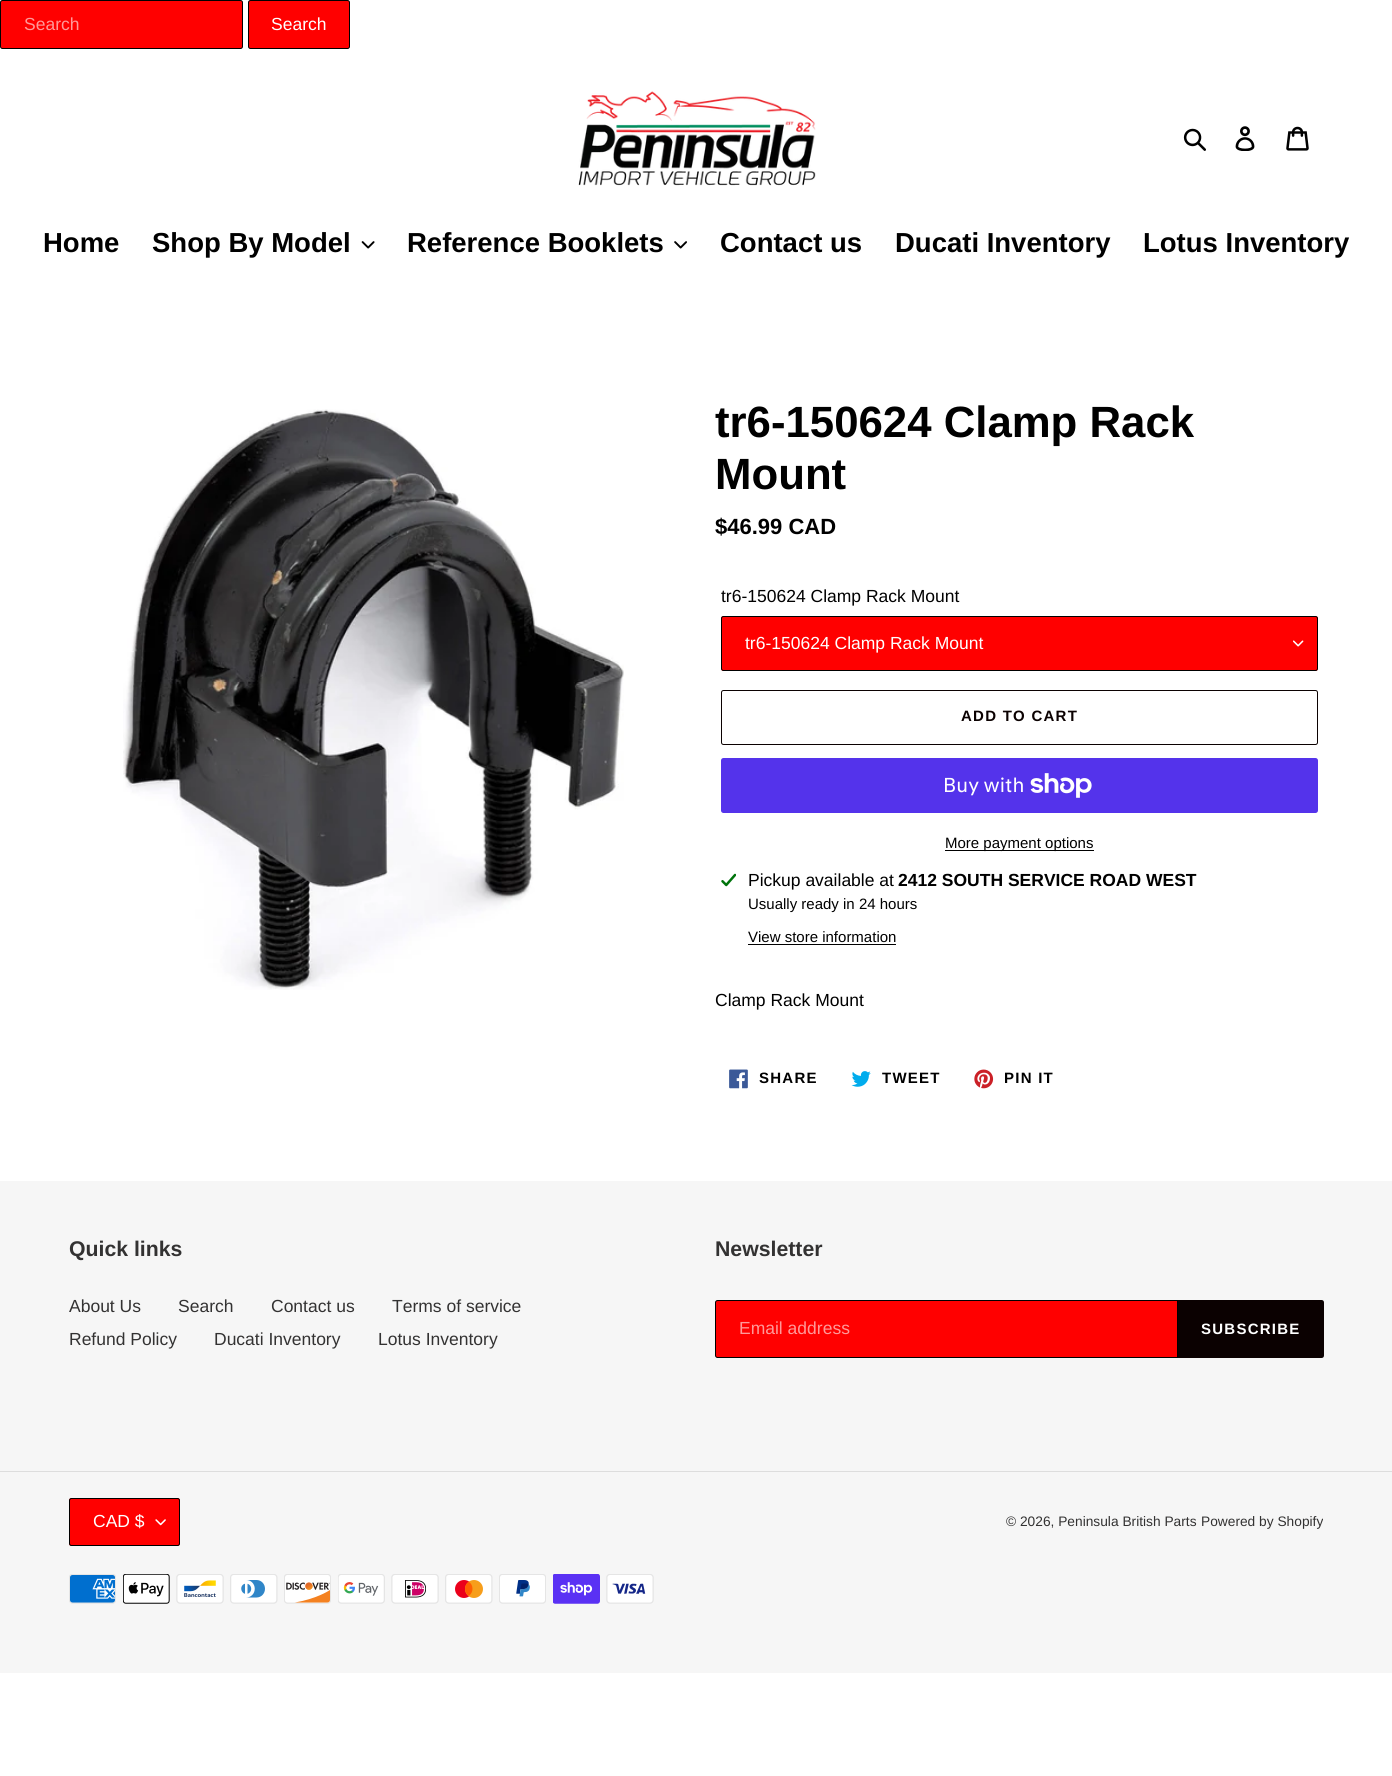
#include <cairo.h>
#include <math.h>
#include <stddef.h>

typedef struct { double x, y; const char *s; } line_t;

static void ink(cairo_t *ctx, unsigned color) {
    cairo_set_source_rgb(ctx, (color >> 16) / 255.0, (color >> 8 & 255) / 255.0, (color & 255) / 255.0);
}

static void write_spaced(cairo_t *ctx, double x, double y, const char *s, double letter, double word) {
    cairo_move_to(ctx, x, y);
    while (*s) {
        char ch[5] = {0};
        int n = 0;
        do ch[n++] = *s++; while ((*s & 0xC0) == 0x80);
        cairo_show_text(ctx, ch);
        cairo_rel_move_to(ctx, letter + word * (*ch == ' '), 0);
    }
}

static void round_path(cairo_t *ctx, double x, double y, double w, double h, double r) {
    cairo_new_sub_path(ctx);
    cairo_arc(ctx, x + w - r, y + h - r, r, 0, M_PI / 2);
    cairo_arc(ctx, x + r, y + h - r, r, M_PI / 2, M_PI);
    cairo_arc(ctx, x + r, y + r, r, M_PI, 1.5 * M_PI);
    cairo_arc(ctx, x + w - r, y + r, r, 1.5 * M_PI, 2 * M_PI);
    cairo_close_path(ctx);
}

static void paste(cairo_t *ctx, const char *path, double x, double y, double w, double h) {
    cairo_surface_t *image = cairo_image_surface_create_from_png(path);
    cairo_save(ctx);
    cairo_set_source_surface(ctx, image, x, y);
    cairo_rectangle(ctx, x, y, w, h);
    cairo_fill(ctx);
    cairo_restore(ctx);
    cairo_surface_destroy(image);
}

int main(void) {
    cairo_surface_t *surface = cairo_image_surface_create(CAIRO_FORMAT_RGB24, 1392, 1776);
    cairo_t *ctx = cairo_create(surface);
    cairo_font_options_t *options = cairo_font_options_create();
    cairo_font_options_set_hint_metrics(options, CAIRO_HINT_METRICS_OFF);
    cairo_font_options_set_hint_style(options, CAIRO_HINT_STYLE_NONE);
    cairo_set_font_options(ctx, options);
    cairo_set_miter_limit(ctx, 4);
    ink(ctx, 0xFFFFFF);
    cairo_paint(ctx);
    ink(ctx, 0xFF0000);
    round_path(ctx, 0.5, 0.5, 242, 48, 2);
    cairo_fill_preserve(ctx);
    ink(ctx, 0x000000);
    cairo_set_line_width(ctx, 1);
    cairo_stroke(ctx);
    cairo_select_font_face(ctx, "Liberation Sans", CAIRO_FONT_SLANT_NORMAL, CAIRO_FONT_WEIGHT_NORMAL);
    cairo_set_font_size(ctx, 17.5);
    ink(ctx, 0xFF9999);
    cairo_move_to(ctx, 24, 30);
    cairo_show_text(ctx, "Search");
    ink(ctx, 0xFF0000);
    round_path(ctx, 248.5, 0.5, 101, 48, 2);
    cairo_fill_preserve(ctx);
    ink(ctx, 0x000000);
    cairo_stroke(ctx);
    ink(ctx, 0xFFFFFF);
    cairo_move_to(ctx, 271, 30);
    cairo_show_text(ctx, "Search");
    paste(ctx, "media/1.png", 578, 91, 238, 95);
    paste(ctx, "media/2.png", 1183, 128, 23, 23);
    paste(ctx, "media/3.png", 1235, 126, 20, 25);
    paste(ctx, "media/4.png", 1286, 126, 23, 25);
    cairo_select_font_face(ctx, "Liberation Sans", CAIRO_FONT_SLANT_NORMAL, CAIRO_FONT_WEIGHT_BOLD);
    cairo_set_font_size(ctx, 27.5);
    ink(ctx, 0x000000);
    cairo_move_to(ctx, 43, 252);
    cairo_show_text(ctx, "Home");
    cairo_move_to(ctx, 152, 252);
    cairo_show_text(ctx, "Shop By Model");
    paste(ctx, "media/5.png", 361, 241, 14, 8);
    cairo_move_to(ctx, 407, 252);
    cairo_show_text(ctx, "Reference Booklets");
    paste(ctx, "media/6.png", 674, 241, 13, 8);
    {
        static const line_t items[] = {
            {720, 252, "Contact us"},
            {895, 252, "Ducati Inventory"},
            {1143, 252, "Lotus Inventory"},
        };
        for (size_t i = 0; i < sizeof items / sizeof *items; i++) {
            cairo_move_to(ctx, items[i].x, items[i].y);
            cairo_show_text(ctx, items[i].s);
        }
    }
    paste(ctx, "media/7.png", 123, 409, 501, 581);
    cairo_set_font_size(ctx, 43.75);
    cairo_move_to(ctx, 715, 437);
    cairo_show_text(ctx, "tr6-150624 Clamp Rack");
    cairo_move_to(ctx, 715, 489);
    cairo_show_text(ctx, "Mount");
    cairo_set_font_size(ctx, 22);
    cairo_move_to(ctx, 715, 534);
    cairo_show_text(ctx, "$46.99 CAD");
    cairo_select_font_face(ctx, "Liberation Sans", CAIRO_FONT_SLANT_NORMAL, CAIRO_FONT_WEIGHT_NORMAL);
    cairo_set_font_size(ctx, 17.5);
    cairo_move_to(ctx, 721, 602);
    cairo_show_text(ctx, "tr6-150624 Clamp Rack Mount");
    ink(ctx, 0xFF0000);
    round_path(ctx, 721, 616, 597, 55, 2.5);
    cairo_fill(ctx);
    paste(ctx, "media/8.png", 1293, 640, 11, 7);
    round_path(ctx, 721.5, 616.5, 596, 54, 2);
    ink(ctx, 0x000000);
    cairo_stroke(ctx);
    ink(ctx, 0xFFFFFF);
    cairo_move_to(ctx, 745, 649);
    cairo_show_text(ctx, "tr6-150624 Clamp Rack Mount");
    round_path(ctx, 721.5, 690.5, 596, 54, 2);
    ink(ctx, 0x0B0101);
    cairo_stroke(ctx);
    cairo_select_font_face(ctx, "Liberation Sans", CAIRO_FONT_SLANT_NORMAL, CAIRO_FONT_WEIGHT_BOLD);
    cairo_set_font_size(ctx, 15);
    write_spaced(ctx, 961, 721, "ADD TO CART", 1.25, 0);
    ink(ctx, 0x5433EB);
    round_path(ctx, 721, 758, 597, 55, 2.5);
    cairo_fill(ctx);
    cairo_select_font_face(ctx, "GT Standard", CAIRO_FONT_SLANT_NORMAL, CAIRO_FONT_WEIGHT_NORMAL);
    cairo_set_font_size(ctx, 20);
    ink(ctx, 0xFFFFFF);
    cairo_move_to(ctx, 943, 792);
    cairo_show_text(ctx, "Buy with");
    paste(ctx, "media/9.png", 1030, 773, 62, 25);
    ink(ctx, 0x000000);
    cairo_rectangle(ctx, 945, 850, 149, 1);
    cairo_fill(ctx);
    cairo_select_font_face(ctx, "Liberation Sans", CAIRO_FONT_SLANT_NORMAL, CAIRO_FONT_WEIGHT_NORMAL);
    cairo_set_font_size(ctx, 15);
    cairo_move_to(ctx, 945, 848);
    cairo_show_text(ctx, "More payment options");
    paste(ctx, "media/10.png", 721, 873, 15, 14);
    cairo_set_font_size(ctx, 17.5);
    cairo_move_to(ctx, 748, 886);
    cairo_show_text(ctx, "Pickup available at");
    cairo_select_font_face(ctx, "Liberation Sans", CAIRO_FONT_SLANT_NORMAL, CAIRO_FONT_WEIGHT_BOLD);
    cairo_move_to(ctx, 898, 886);
    cairo_show_text(ctx, "2412 SOUTH SERVICE ROAD WEST");
    cairo_select_font_face(ctx, "Liberation Sans", CAIRO_FONT_SLANT_NORMAL, CAIRO_FONT_WEIGHT_NORMAL);
    cairo_set_font_size(ctx, 15);
    cairo_move_to(ctx, 748, 909);
    cairo_show_text(ctx, "Usually ready in 24 hours");
    cairo_move_to(ctx, 748, 942);
    cairo_show_text(ctx, "View store information");
    cairo_rectangle(ctx, 748, 944, 148, 1);
    cairo_fill(ctx);
    cairo_set_font_size(ctx, 17.5);
    cairo_move_to(ctx, 715, 1006);
    cairo_show_text(ctx, "Clamp Rack Mount");
    paste(ctx, "media/11.png", 729, 1069, 19, 20);
    cairo_select_font_face(ctx, "Liberation Sans", CAIRO_FONT_SLANT_NORMAL, CAIRO_FONT_WEIGHT_BOLD);
    cairo_set_font_size(ctx, 15);
    write_spaced(ctx, 759, 1083, "SHARE", 1.25, 0);
    paste(ctx, "media/12.png", 851, 1071, 20, 16);
    write_spaced(ctx, 882, 1083, "TWEET", 1.25, 0);
    paste(ctx, "media/13.png", 974, 1069, 20, 20);
    write_spaced(ctx, 1004, 1083, "PIN IT", 1.25, 0);
    ink(ctx, 0xF6F6F6);
    cairo_rectangle(ctx, 0, 1181, 1392, 492);
    cairo_fill(ctx);
    cairo_set_font_size(ctx, 21.25);
    ink(ctx, 0x333232);
    cairo_move_to(ctx, 69, 1256);
    cairo_show_text(ctx, "Quick links");
    cairo_select_font_face(ctx, "Liberation Sans", CAIRO_FONT_SLANT_NORMAL, CAIRO_FONT_WEIGHT_NORMAL);
    cairo_set_font_size(ctx, 17.5);
    {
        static const line_t items[] = {
            {69, 1312, "About Us"},
            {178, 1312, "Search"},
            {271, 1312, "Contact us"},
            {392, 1312, "Terms of service"},
            {69, 1345, "Refund Policy"},
            {214, 1345, "Ducati Inventory"},
            {378, 1345, "Lotus Inventory"},
        };
        for (size_t i = 0; i < sizeof items / sizeof *items; i++) {
            cairo_move_to(ctx, items[i].x, items[i].y);
            cairo_show_text(ctx, items[i].s);
        }
    }
    cairo_select_font_face(ctx, "Liberation Sans", CAIRO_FONT_SLANT_NORMAL, CAIRO_FONT_WEIGHT_BOLD);
    cairo_set_font_size(ctx, 21.25);
    cairo_move_to(ctx, 715, 1256);
    cairo_show_text(ctx, "Newsletter");
    ink(ctx, 0xFF0000);
    cairo_new_path(ctx);
    cairo_move_to(ctx, 717.5, 1300.5);
    cairo_line_to(ctx, 1177.5, 1300.5);
    cairo_line_to(ctx, 1177.5, 1357.5);
    cairo_line_to(ctx, 717.5, 1357.5);
    cairo_curve_to(ctx, 716.5, 1357.5, 715.5, 1356.5, 715.5, 1355.5);
    cairo_line_to(ctx, 715.5, 1302.5);
    cairo_curve_to(ctx, 715.5, 1301.5, 716.5, 1300.5, 717.5, 1300.5);
    cairo_close_path(ctx);
    cairo_fill_preserve(ctx);
    ink(ctx, 0x000000);
    cairo_stroke(ctx);
    cairo_select_font_face(ctx, "Liberation Sans", CAIRO_FONT_SLANT_NORMAL, CAIRO_FONT_WEIGHT_NORMAL);
    cairo_set_font_size(ctx, 17.5);
    ink(ctx, 0xFF9999);
    cairo_move_to(ctx, 739, 1334);
    cairo_show_text(ctx, "Email address");
    ink(ctx, 0x0B0101);
    cairo_new_path(ctx);
    cairo_move_to(ctx, 1178, 1300);
    cairo_line_to(ctx, 1321.5, 1300);
    cairo_curve_to(ctx, 1323, 1300, 1324, 1301, 1324, 1302.5);
    cairo_line_to(ctx, 1324, 1355.5);
    cairo_curve_to(ctx, 1324, 1357, 1323, 1358, 1321.5, 1358);
    cairo_line_to(ctx, 1178, 1358);
    cairo_close_path(ctx);
    cairo_fill(ctx);
    cairo_select_font_face(ctx, "Liberation Sans", CAIRO_FONT_SLANT_NORMAL, CAIRO_FONT_WEIGHT_BOLD);
    cairo_set_font_size(ctx, 15);
    ink(ctx, 0xFFFFFF);
    write_spaced(ctx, 1201, 1334, "SUBSCRIBE", 1.25, 0);
    ink(ctx, 0xDDDDDD);
    cairo_rectangle(ctx, 0, 1471, 1392, 1);
    cairo_fill(ctx);
    ink(ctx, 0xFF0000);
    round_path(ctx, 69, 1498, 111, 48, 2.5);
    cairo_fill(ctx);
    paste(ctx, "media/14.png", 155, 1519, 11, 7);
    round_path(ctx, 69.5, 1498.5, 110, 47, 2);
    ink(ctx, 0x000000);
    cairo_stroke(ctx);
    cairo_select_font_face(ctx, "Liberation Sans", CAIRO_FONT_SLANT_NORMAL, CAIRO_FONT_WEIGHT_NORMAL);
    cairo_set_font_size(ctx, 17.5);
    ink(ctx, 0xFFFFFF);
    cairo_move_to(ctx, 93, 1527);
    cairo_show_text(ctx, "CAD $");
    cairo_set_font_size(ctx, 13.75);
    ink(ctx, 0x333232);
    cairo_move_to(ctx, 1006, 1526);
    cairo_show_text(ctx, "© 2026, Peninsula British Parts");
    cairo_move_to(ctx, 1201, 1526);
    cairo_show_text(ctx, "Powered by Shopify");
    paste(ctx, "media/15.png", 69, 1574, 47, 30);
    paste(ctx, "media/16.png", 123, 1574, 47, 30);
    paste(ctx, "media/17.png", 176, 1574, 48, 30);
    paste(ctx, "media/18.png", 230, 1574, 48, 30);
    paste(ctx, "media/19.png", 284, 1574, 47, 30);
    paste(ctx, "media/20.png", 338, 1574, 47, 30);
    paste(ctx, "media/21.png", 391, 1574, 48, 30);
    paste(ctx, "media/22.png", 445, 1574, 48, 30);
    paste(ctx, "media/23.png", 499, 1574, 47, 30);
    paste(ctx, "media/24.png", 553, 1574, 47, 30);
    paste(ctx, "media/25.png", 606, 1574, 48, 30);
    cairo_surface_write_to_png(surface, "image.png");
    cairo_font_options_destroy(options);
    cairo_destroy(ctx);
    cairo_surface_destroy(surface);
    return 0;
}
